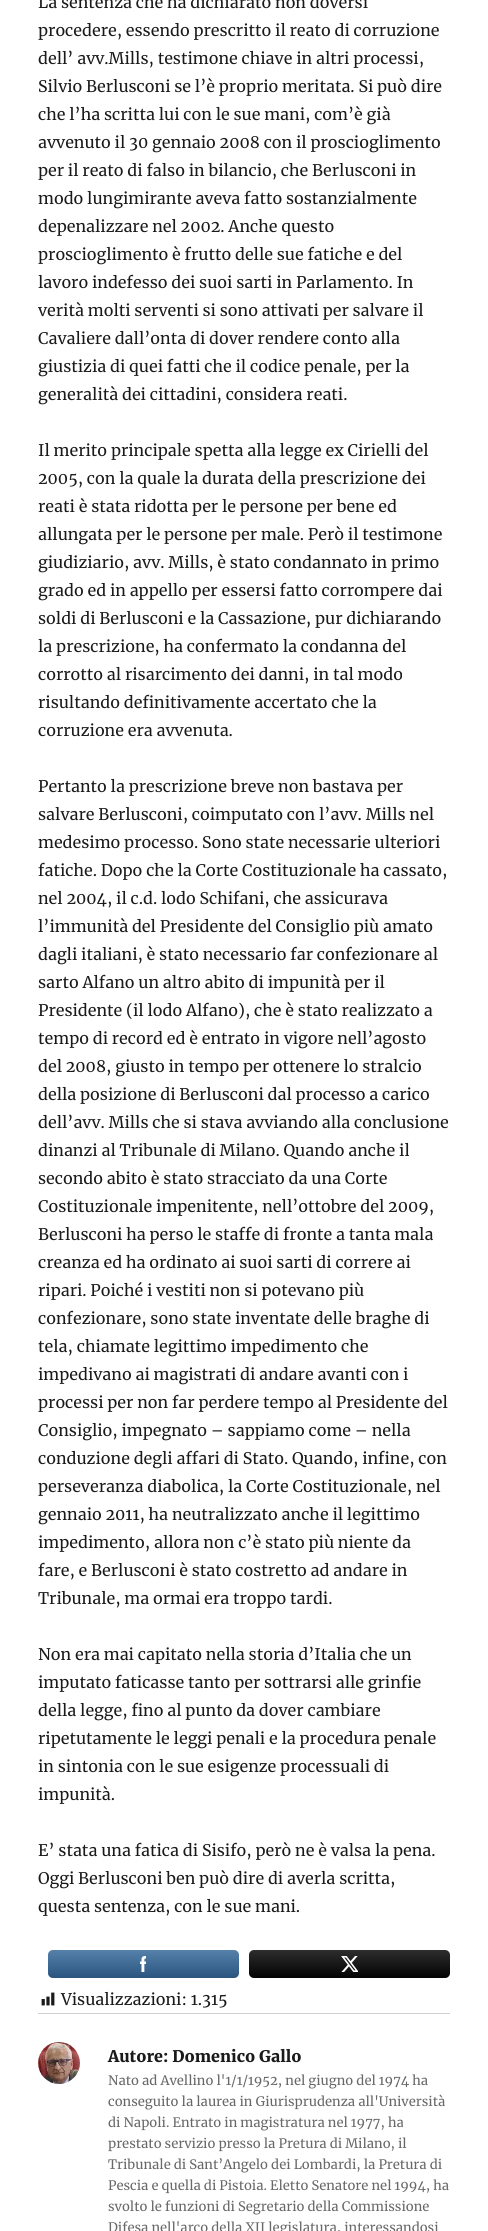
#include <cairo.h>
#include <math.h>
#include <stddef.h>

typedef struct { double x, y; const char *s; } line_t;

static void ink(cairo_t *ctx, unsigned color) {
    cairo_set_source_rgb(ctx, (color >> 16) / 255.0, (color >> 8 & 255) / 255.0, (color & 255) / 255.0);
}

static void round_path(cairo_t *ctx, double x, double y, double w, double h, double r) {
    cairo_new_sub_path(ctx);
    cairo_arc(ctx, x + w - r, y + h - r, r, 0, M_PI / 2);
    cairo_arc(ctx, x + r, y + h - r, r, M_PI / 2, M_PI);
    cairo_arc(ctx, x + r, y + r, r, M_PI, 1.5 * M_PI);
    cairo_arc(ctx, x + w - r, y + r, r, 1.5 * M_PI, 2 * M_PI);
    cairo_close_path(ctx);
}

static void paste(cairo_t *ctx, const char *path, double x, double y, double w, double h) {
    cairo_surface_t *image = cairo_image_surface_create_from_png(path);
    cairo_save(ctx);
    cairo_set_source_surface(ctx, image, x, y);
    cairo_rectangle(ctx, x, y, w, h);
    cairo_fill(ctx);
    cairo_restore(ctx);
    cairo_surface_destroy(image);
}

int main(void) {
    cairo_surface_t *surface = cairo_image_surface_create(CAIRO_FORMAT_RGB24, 488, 2231);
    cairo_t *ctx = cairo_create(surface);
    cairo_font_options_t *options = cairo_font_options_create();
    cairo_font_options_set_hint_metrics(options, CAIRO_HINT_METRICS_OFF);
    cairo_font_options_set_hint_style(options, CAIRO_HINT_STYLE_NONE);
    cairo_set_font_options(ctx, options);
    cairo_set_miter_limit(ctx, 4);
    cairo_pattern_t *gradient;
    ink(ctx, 0xFFFFFF);
    cairo_paint(ctx);
    cairo_select_font_face(ctx, "Merriweather", CAIRO_FONT_SLANT_NORMAL, CAIRO_FONT_WEIGHT_NORMAL);
    cairo_set_font_size(ctx, 16);
    ink(ctx, 0x1A1A1A);
    {
        static const line_t items[] = {
            {38, 8, "La sentenza che ha dichiarato non doversi"},
            {38, 36, "procedere, essendo prescritto il reato di corruzione"},
            {38, 64, "dell’ avv.Mills, testimone chiave in altri processi,"},
            {38, 92, "Silvio Berlusconi se l’è proprio meritata. Si può dire"},
            {38, 120, "che l’ha scritta lui con le sue mani, com’è già"},
            {38, 148, "avvenuto il 30 gennaio 2008 con il proscioglimento"},
            {38, 176, "per il reato di falso in bilancio, che Berlusconi in"},
            {38, 204, "modo lungimirante aveva fatto sostanzialmente"},
            {38, 232, "depenalizzare nel 2002. Anche questo"},
            {38, 260, "proscioglimento è frutto delle sue fatiche e del"},
            {38, 288, "lavoro indefesso dei suoi sarti in Parlamento. In"},
            {38, 316, "verità molti serventi si sono attivati per salvare il"},
            {38, 344, "Cavaliere dall’onta di dover rendere conto alla"},
            {38, 372, "giustizia di quei fatti che il codice penale, per la"},
            {38, 400, "generalità dei cittadini, considera reati."},
            {38, 456, "Il merito principale spetta alla legge ex Cirielli del"},
            {38, 484, "2005, con la quale la durata della prescrizione dei"},
            {38, 512, "reati è stata ridotta per le persone per bene ed"},
            {38, 540, "allungata per le persone per male. Però il testimone"},
            {38, 568, "giudiziario, avv. Mills, è stato condannato in primo"},
            {38, 596, "grado ed in appello per essersi fatto corrompere dai"},
            {38, 624, "soldi di Berlusconi e la Cassazione, pur dichiarando"},
            {38, 652, "la prescrizione, ha confermato la condanna del"},
            {38, 680, "corrotto al risarcimento dei danni, in tal modo"},
            {38, 708, "risultando definitivamente accertato che la"},
            {38, 736, "corruzione era avvenuta."},
            {38, 792, "Pertanto la prescrizione breve non bastava per"},
            {38, 820, "salvare Berlusconi, coimputato con l’avv. Mills nel"},
            {38, 848, "medesimo processo. Sono state necessarie ulteriori"},
            {38, 876, "fatiche. Dopo che la Corte Costituzionale ha cassato,"},
            {38, 904, "nel 2004, il c.d. lodo Schifani, che assicurava"},
            {38, 932, "l’immunità del Presidente del Consiglio più amato"},
            {38, 960, "dagli italiani, è stato necessario far confezionare al"},
            {38, 988, "sarto Alfano un altro abito di impunità per il"},
            {38, 1016, "Presidente (il lodo Alfano), che è stato realizzato a"},
            {38, 1044, "tempo di record ed è entrato in vigore nell’agosto"},
            {38, 1072, "del 2008, giusto in tempo per ottenere lo stralcio"},
            {38, 1100, "della posizione di Berlusconi dal processo a carico"},
            {38, 1128, "dell’avv. Mills che si stava avviando alla conclusione"},
            {38, 1156, "dinanzi al Tribunale di Milano. Quando anche il"},
            {38, 1184, "secondo abito è stato stracciato da una Corte"},
            {38, 1212, "Costituzionale impenitente, nell’ottobre del 2009,"},
            {38, 1240, "Berlusconi ha perso le staffe di fronte a tanta mala"},
            {38, 1268, "creanza ed ha ordinato ai suoi sarti di correre ai"},
            {38, 1296, "ripari. Poiché i vestiti non si potevano più"},
            {38, 1324, "confezionare, sono state inventate delle braghe di"},
            {38, 1352, "tela, chiamate legittimo impedimento che"},
            {38, 1380, "impedivano ai magistrati di andare avanti con i"},
            {38, 1408, "processi per non far perdere tempo al Presidente del"},
            {38, 1436, "Consiglio, impegnato – sappiamo come – nella"},
            {38, 1464, "conduzione degli affari di Stato. Quando, infine, con"},
            {38, 1492, "perseveranza diabolica, la Corte Costituzionale, nel"},
            {38, 1520, "gennaio 2011, ha neutralizzato anche il legittimo"},
            {38, 1548, "impedimento, allora non c’è stato più niente da"},
            {38, 1576, "fare, e Berlusconi è stato costretto ad andare in"},
            {38, 1604, "Tribunale, ma ormai era troppo tardi."},
            {38, 1660, "Non era mai capitato nella storia d’Italia che un"},
            {38, 1688, "imputato faticasse tanto per sottrarsi alle grinfie"},
            {38, 1716, "della legge, fino al punto da dover cambiare"},
            {38, 1744, "ripetutamente le leggi penali e la procedura penale"},
            {38, 1772, "in sintonia con le sue esigenze processuali di"},
            {38, 1800, "impunità."},
            {38, 1856, "E’ stata una fatica di Sisifo, però ne è valsa la pena."},
            {38, 1884, "Oggi Berlusconi ben può dire di averla scritta,"},
            {38, 1912, "questa sentenza, con le sue mani."},
        };
        for (size_t i = 0; i < sizeof items / sizeof *items; i++) {
            cairo_move_to(ctx, items[i].x, items[i].y);
            cairo_show_text(ctx, items[i].s);
        }
    }
    ink(ctx, 0x336699);
    round_path(ctx, 48, 1950, 191, 28, 5);
    cairo_fill(ctx);
    gradient = cairo_pattern_create_linear(144, 1978, 144, 1950);
    cairo_pattern_add_color_stop_rgba(gradient, 0, 0, 0, 0, 0.17);
    cairo_pattern_add_color_stop_rgba(gradient, 1, 1, 1, 1, 0.17);
    cairo_set_source(ctx, gradient);
    cairo_pattern_destroy(gradient);
    round_path(ctx, 48, 1950, 191, 28, 5);
    cairo_fill(ctx);
    paste(ctx, "media/1.png", 140, 1956, 6, 16);
    ink(ctx, 0x020202);
    round_path(ctx, 249, 1950, 201, 28, 5);
    cairo_fill(ctx);
    gradient = cairo_pattern_create_linear(350, 1978, 350, 1950);
    cairo_pattern_add_color_stop_rgba(gradient, 0, 0, 0, 0, 0.17);
    cairo_pattern_add_color_stop_rgba(gradient, 1, 1, 1, 1, 0.17);
    cairo_set_source(ctx, gradient);
    cairo_pattern_destroy(gradient);
    round_path(ctx, 249, 1950, 201, 28, 5);
    cairo_fill(ctx);
    paste(ctx, "media/2.png", 341, 1956, 17, 16);
    paste(ctx, "media/3.png", 41, 1992, 14, 14);
    ink(ctx, 0x1A1A1A);
    cairo_move_to(ctx, 61, 2005);
    cairo_show_text(ctx, "Visualizzazioni: 1.315");
    ink(ctx, 0xD1D1D1);
    cairo_rectangle(ctx, 38, 2013, 412, 1);
    cairo_fill(ctx);
    paste(ctx, "media/4.png", 38, 2042, 42, 42);
    cairo_select_font_face(ctx, "Merriweather Black", CAIRO_FONT_SLANT_NORMAL, CAIRO_FONT_WEIGHT_NORMAL);
    ink(ctx, 0x1A1A1A);
    cairo_move_to(ctx, 108, 2062);
    cairo_show_text(ctx, "Autore: Domenico Gallo");
    cairo_select_font_face(ctx, "Merriweather", CAIRO_FONT_SLANT_NORMAL, CAIRO_FONT_WEIGHT_NORMAL);
    cairo_set_font_size(ctx, 13);
    ink(ctx, 0x686868);
    {
        static const line_t items[] = {
            {108, 2085, "Nato ad Avellino l'1/1/1952, nel giugno del 1974 ha"},
            {108, 2106, "conseguito la laurea in Giurisprudenza all'Università"},
            {108, 2127, "di Napoli. Entrato in magistratura nel 1977, ha"},
            {108, 2148, "prestato servizio presso la Pretura di Milano, il"},
        };
        for (size_t i = 0; i < sizeof items / sizeof *items; i++) {
            cairo_move_to(ctx, items[i].x, items[i].y);
            cairo_show_text(ctx, items[i].s);
        }
    }
    cairo_save(ctx);
    cairo_rectangle(ctx, 108, 2070, 342, 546);
    cairo_clip(ctx);
    cairo_move_to(ctx, 108, 2169);
    cairo_show_text(ctx, "Tribunale di Sant’Angelo dei Lombardi, la Pretura di");
    cairo_restore(ctx);
    {
        static const line_t items[] = {
            {108, 2190, "Pescia e quella di Pistoia. Eletto Senatore nel 1994, ha"},
            {108, 2211, "svolto le funzioni di Segretario della Commissione"},
            {108, 2232, "Difesa nell'arco della XII legislatura, interessandosi"},
        };
        for (size_t i = 0; i < sizeof items / sizeof *items; i++) {
            cairo_move_to(ctx, items[i].x, items[i].y);
            cairo_show_text(ctx, items[i].s);
        }
    }
    cairo_surface_write_to_png(surface, "image.png");
    cairo_font_options_destroy(options);
    cairo_destroy(ctx);
    cairo_surface_destroy(surface);
    return 0;
}
